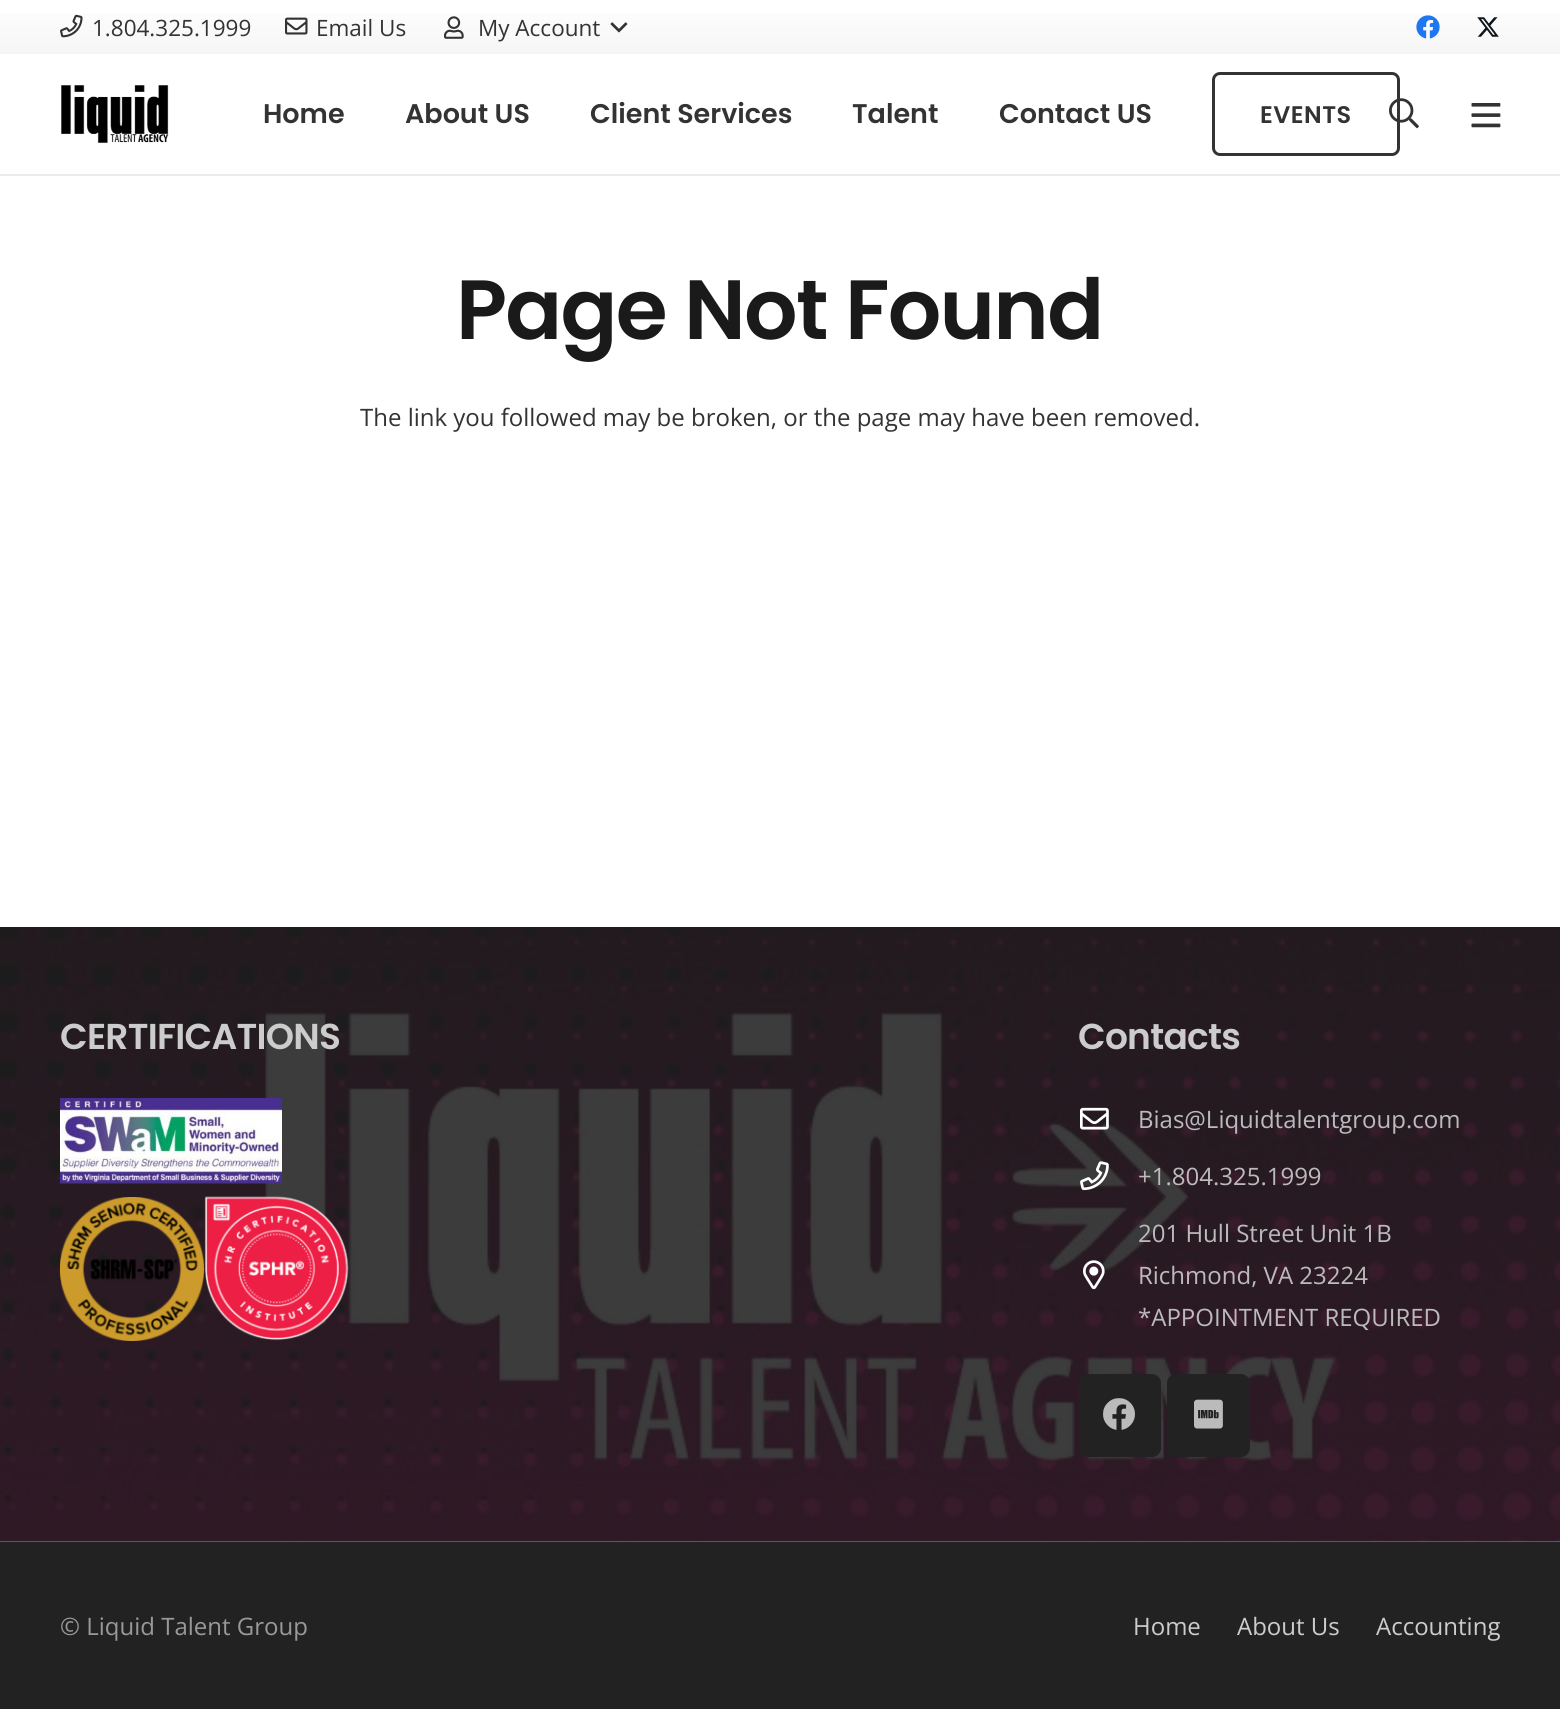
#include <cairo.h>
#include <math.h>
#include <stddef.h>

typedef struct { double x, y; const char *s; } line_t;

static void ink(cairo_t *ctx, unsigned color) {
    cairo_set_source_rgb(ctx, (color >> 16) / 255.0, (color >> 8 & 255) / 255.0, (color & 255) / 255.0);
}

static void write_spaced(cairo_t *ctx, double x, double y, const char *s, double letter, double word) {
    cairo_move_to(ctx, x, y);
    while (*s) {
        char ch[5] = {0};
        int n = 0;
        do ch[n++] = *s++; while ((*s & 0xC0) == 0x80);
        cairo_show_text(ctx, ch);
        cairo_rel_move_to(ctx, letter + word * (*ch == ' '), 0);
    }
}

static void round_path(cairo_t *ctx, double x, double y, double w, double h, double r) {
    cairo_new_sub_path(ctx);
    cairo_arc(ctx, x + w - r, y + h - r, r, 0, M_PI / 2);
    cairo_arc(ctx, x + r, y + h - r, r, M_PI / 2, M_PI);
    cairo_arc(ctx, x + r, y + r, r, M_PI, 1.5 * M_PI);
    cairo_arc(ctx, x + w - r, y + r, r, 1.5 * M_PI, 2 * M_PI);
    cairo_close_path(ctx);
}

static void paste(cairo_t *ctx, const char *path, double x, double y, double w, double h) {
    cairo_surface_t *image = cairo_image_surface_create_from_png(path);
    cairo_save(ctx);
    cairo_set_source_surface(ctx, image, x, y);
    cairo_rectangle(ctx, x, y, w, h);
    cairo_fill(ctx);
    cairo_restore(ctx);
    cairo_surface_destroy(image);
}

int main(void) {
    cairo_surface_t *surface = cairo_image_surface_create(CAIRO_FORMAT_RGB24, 1560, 1709);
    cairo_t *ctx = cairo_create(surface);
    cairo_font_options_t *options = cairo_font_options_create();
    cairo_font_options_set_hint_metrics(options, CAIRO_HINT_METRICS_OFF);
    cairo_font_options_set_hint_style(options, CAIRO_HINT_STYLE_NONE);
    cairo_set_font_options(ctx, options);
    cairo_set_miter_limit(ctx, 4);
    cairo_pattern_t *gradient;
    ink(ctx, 0xFFFFFF);
    cairo_paint(ctx);
    gradient = cairo_pattern_create_linear(780, 54, 780, 0);
    cairo_pattern_add_color_stop_rgba(gradient, 0, 0.961, 0.961, 0.961, 1);
    cairo_pattern_add_color_stop_rgba(gradient, 1, 1, 1, 1, 1);
    cairo_set_source(ctx, gradient);
    cairo_pattern_destroy(gradient);
    cairo_rectangle(ctx, 0, 14, 1560, 40);
    cairo_fill(ctx);
    paste(ctx, "media/1.png", 60, 14, 23, 24);
    cairo_select_font_face(ctx, "Open Sans", CAIRO_FONT_SLANT_NORMAL, CAIRO_FONT_WEIGHT_NORMAL);
    cairo_set_font_size(ctx, 22.5);
    ink(ctx, 0x333333);
    cairo_move_to(ctx, 92, 36);
    cairo_show_text(ctx, "1.804.325.1999");
    paste(ctx, "media/2.png", 285, 17, 23, 18);
    cairo_move_to(ctx, 316, 36);
    cairo_show_text(ctx, "Email Us");
    paste(ctx, "media/3.png", 444, 16, 20, 23);
    cairo_move_to(ctx, 478, 36);
    cairo_show_text(ctx, "My Account");
    paste(ctx, "media/4.png", 610, 22, 18, 11);
    paste(ctx, "media/5.png", 1416, 15, 24, 24);
    paste(ctx, "media/6.png", 1477, 17, 22, 20);
    ink(ctx, 0xEBEBEB);
    cairo_rectangle(ctx, 0, 174, 1560, 2);
    cairo_fill(ctx);
    paste(ctx, "media/7.png", 61, 85, 108, 58);
    cairo_select_font_face(ctx, "Poppins SemiBold", CAIRO_FONT_SLANT_NORMAL, CAIRO_FONT_WEIGHT_NORMAL);
    cairo_set_font_size(ctx, 27);
    ink(ctx, 0x333333);
    {
        static const line_t items[] = {
            {263, 123, "Home"},
            {405, 123, "About US"},
            {590, 123, "Client Services"},
            {852, 123, "Talent"},
            {999, 123, "Contact US"},
        };
        for (size_t i = 0; i < sizeof items / sizeof *items; i++) {
            cairo_move_to(ctx, items[i].x, items[i].y);
            cairo_show_text(ctx, items[i].s);
        }
    }
    paste(ctx, "media/8.png", 1389, 98, 30, 31);
    round_path(ctx, 1213.5, 73.5, 185, 81, 6.5);
    cairo_set_line_width(ctx, 3);
    cairo_stroke(ctx);
    cairo_set_font_size(ctx, 24);
    write_spaced(ctx, 1260, 123, "EVENTS", 0.5, 0);
    paste(ctx, "media/9.png", 1471, 103, 30, 25);
    cairo_set_font_size(ctx, 84);
    ink(ctx, 0x1A1A1A);
    write_spaced(ctx, 456, 339, "Page Not Found", -1.75, 0);
    cairo_select_font_face(ctx, "Open Sans", CAIRO_FONT_SLANT_NORMAL, CAIRO_FONT_WEIGHT_NORMAL);
    cairo_set_font_size(ctx, 24);
    ink(ctx, 0x333333);
    cairo_move_to(ctx, 360, 426);
    cairo_show_text(ctx, "The link you followed may be broken, or the page may have been removed.");
    paste(ctx, "media/10.png", 0, 927, 1560, 615);
    cairo_select_font_face(ctx, "Poppins SemiBold", CAIRO_FONT_SLANT_NORMAL, CAIRO_FONT_WEIGHT_NORMAL);
    cairo_set_font_size(ctx, 36);
    ink(ctx, 0xCCCCCC);
    write_spaced(ctx, 60, 1049, "CERTIFICATIONS", -0.75, 0);
    paste(ctx, "media/11.png", 60, 1098, 222, 86);
    paste(ctx, "media/12.png", 60, 1197, 144, 144);
    paste(ctx, "media/13.png", 204, 1196, 145, 145);
    write_spaced(ctx, 1078, 1049, "Contacts", -0.75, 0);
    paste(ctx, "media/14.png", 1080, 1107, 29, 23);
    cairo_select_font_face(ctx, "Open Sans", CAIRO_FONT_SLANT_NORMAL, CAIRO_FONT_WEIGHT_NORMAL);
    cairo_set_font_size(ctx, 24);
    ink(ctx, 0xBBBBBB);
    cairo_move_to(ctx, 1138, 1128);
    cairo_show_text(ctx, "Bias@Liquidtalentgroup.com");
    paste(ctx, "media/15.png", 1080, 1161, 29, 30);
    cairo_move_to(ctx, 1138, 1185);
    cairo_show_text(ctx, "+1.804.325.1999");
    paste(ctx, "media/16.png", 1083, 1260, 22, 30);
    {
        static const line_t items[] = {
            {1138, 1242, "201 Hull Street Unit 1B"},
            {1138, 1284, "Richmond, VA 23224"},
            {1138, 1326, "*APPOINTMENT REQUIRED"},
        };
        for (size_t i = 0; i < sizeof items / sizeof *items; i++) {
            cairo_move_to(ctx, items[i].x, items[i].y);
            cairo_show_text(ctx, items[i].s);
        }
    }
    ink(ctx, 0x222222);
    round_path(ctx, 1079, 1374, 82, 83, 9);
    cairo_fill(ctx);
    paste(ctx, "media/17.png", 1103, 1398, 32, 32);
    round_path(ctx, 1167, 1374, 83, 83, 9);
    cairo_fill(ctx);
    paste(ctx, "media/18.png", 1194, 1399, 29, 30);
    cairo_rectangle(ctx, 0, 1542, 1560, 167);
    cairo_fill(ctx);
    ink(ctx, 0x999999);
    cairo_move_to(ctx, 60, 1635);
    cairo_show_text(ctx, "© Liquid Talent Group");
    ink(ctx, 0xCCCCCC);
    {
        static const line_t items[] = {
            {1133, 1635, "Home"},
            {1237, 1635, "About Us"},
            {1376, 1635, "Accounting"},
        };
        for (size_t i = 0; i < sizeof items / sizeof *items; i++) {
            cairo_move_to(ctx, items[i].x, items[i].y);
            cairo_show_text(ctx, items[i].s);
        }
    }
    cairo_surface_write_to_png(surface, "image.png");
    cairo_font_options_destroy(options);
    cairo_destroy(ctx);
    cairo_surface_destroy(surface);
    return 0;
}
